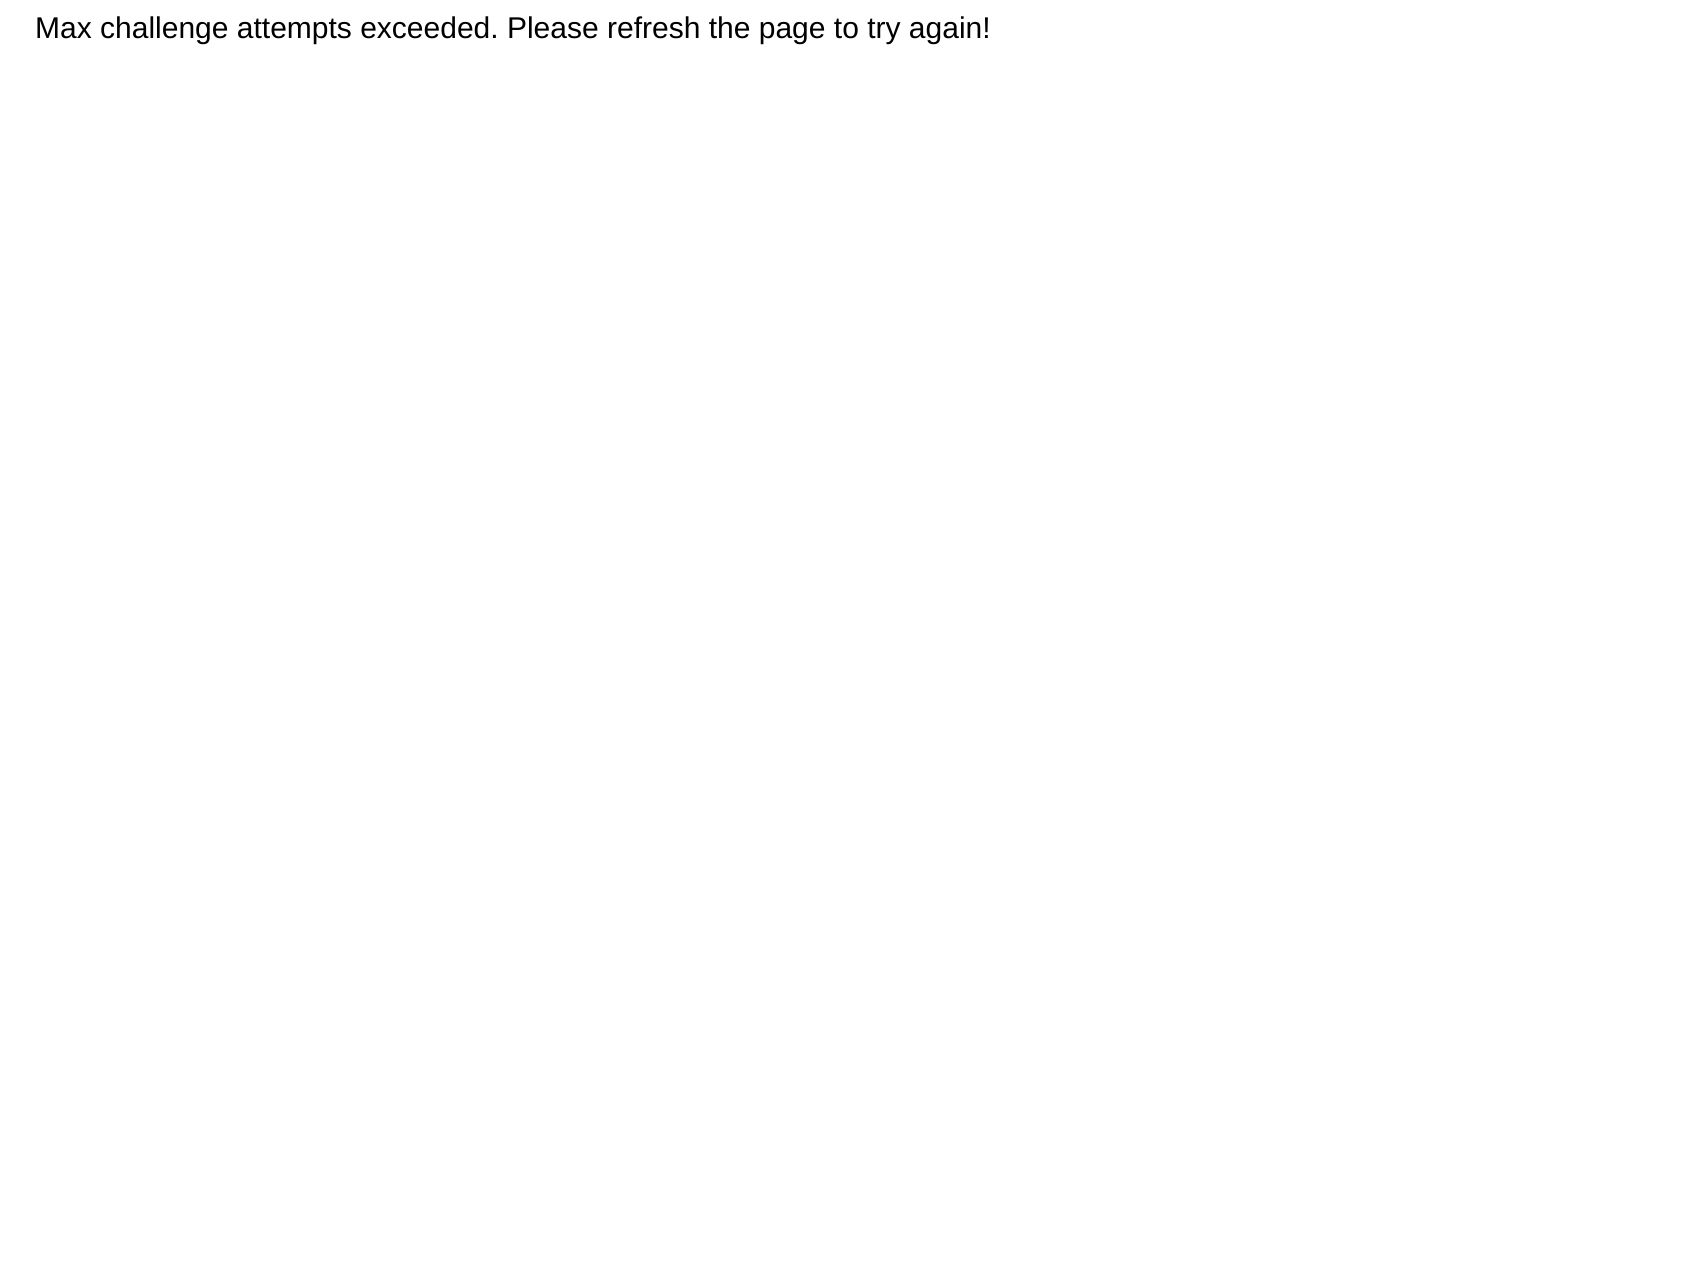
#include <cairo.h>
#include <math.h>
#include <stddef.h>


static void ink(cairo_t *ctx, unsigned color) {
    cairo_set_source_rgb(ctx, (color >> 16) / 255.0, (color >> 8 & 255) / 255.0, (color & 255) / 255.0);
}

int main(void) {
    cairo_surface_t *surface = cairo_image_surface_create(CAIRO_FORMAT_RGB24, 1687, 1265);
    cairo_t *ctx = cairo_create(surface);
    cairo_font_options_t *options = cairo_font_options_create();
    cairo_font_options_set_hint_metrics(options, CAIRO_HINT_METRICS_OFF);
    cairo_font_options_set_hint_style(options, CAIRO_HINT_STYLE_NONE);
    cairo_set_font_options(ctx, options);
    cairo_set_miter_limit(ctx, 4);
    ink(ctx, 0xFFFFFF);
    cairo_paint(ctx);
    cairo_select_font_face(ctx, "Liberation Sans", CAIRO_FONT_SLANT_NORMAL, CAIRO_FONT_WEIGHT_NORMAL);
    cairo_set_font_size(ctx, 30);
    ink(ctx, 0x000000);
    cairo_move_to(ctx, 35, 38);
    cairo_show_text(ctx, "Max challenge attempts exceeded. Please refresh the page to try again!");
    cairo_surface_write_to_png(surface, "image.png");
    cairo_font_options_destroy(options);
    cairo_destroy(ctx);
    cairo_surface_destroy(surface);
    return 0;
}
